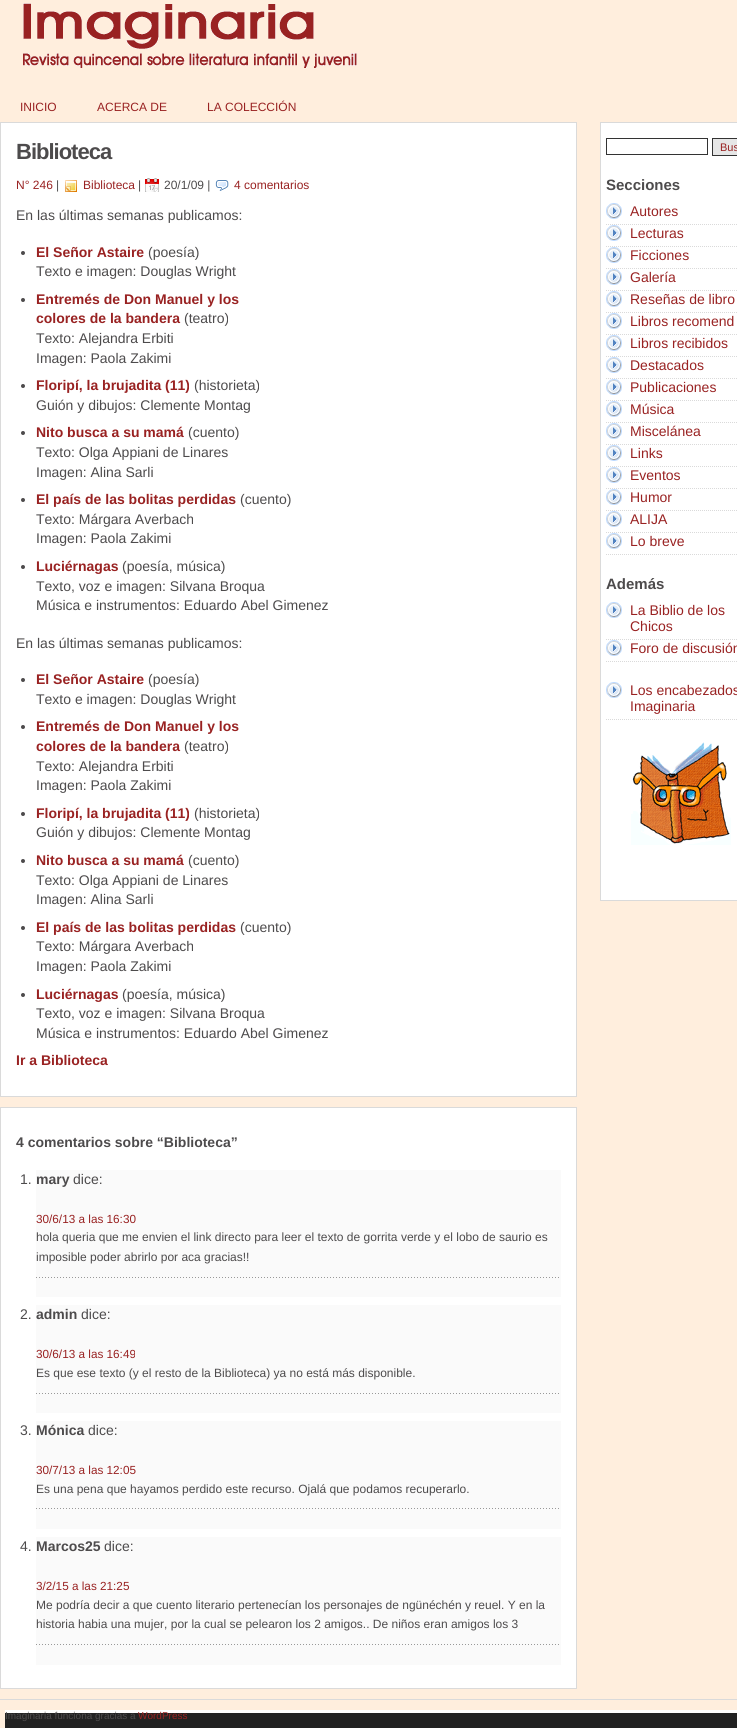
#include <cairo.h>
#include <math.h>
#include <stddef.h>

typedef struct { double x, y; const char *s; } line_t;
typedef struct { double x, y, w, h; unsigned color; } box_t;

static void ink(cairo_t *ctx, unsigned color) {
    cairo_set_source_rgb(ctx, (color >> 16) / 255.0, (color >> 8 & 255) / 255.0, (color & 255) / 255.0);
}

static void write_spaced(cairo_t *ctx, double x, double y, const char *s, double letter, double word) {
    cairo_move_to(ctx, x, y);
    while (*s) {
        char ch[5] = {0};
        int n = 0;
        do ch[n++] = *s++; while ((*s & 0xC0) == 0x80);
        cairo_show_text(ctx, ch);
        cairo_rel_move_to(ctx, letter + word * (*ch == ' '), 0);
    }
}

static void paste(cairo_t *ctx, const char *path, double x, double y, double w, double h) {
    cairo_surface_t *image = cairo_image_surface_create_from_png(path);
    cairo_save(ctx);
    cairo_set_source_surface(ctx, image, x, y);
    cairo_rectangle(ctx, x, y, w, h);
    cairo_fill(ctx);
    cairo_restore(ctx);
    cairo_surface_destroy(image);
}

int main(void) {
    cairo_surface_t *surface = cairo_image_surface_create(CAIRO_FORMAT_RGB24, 737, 1728);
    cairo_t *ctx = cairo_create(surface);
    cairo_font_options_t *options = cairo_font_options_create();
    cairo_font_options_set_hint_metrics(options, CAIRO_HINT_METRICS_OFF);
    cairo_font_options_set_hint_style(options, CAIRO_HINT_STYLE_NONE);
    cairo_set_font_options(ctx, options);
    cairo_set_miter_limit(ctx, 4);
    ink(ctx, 0xFFEEDD);
    cairo_paint(ctx);
    paste(ctx, "media/1.png", 23, 3, 334, 65);
    cairo_select_font_face(ctx, "Liberation Sans", CAIRO_FONT_SLANT_NORMAL, CAIRO_FONT_WEIGHT_NORMAL);
    cairo_set_font_size(ctx, 12);
    ink(ctx, 0x992222);
    {
        static const line_t items[] = {
            {20, 111, "INICIO"},
            {97, 111, "ACERCA DE"},
            {207, 111, "LA COLECCIÓN"},
        };
        for (size_t i = 0; i < sizeof items / sizeof *items; i++) {
            cairo_move_to(ctx, items[i].x, items[i].y);
            cairo_show_text(ctx, items[i].s);
        }
    }
    ink(ctx, 0xFFFFFF);
    cairo_rectangle(ctx, 0.5, 122.5, 576, 974);
    cairo_fill_preserve(ctx);
    ink(ctx, 0xDADADA);
    cairo_set_line_width(ctx, 1);
    cairo_stroke(ctx);
    cairo_select_font_face(ctx, "Liberation Sans", CAIRO_FONT_SLANT_NORMAL, CAIRO_FONT_WEIGHT_BOLD);
    cairo_set_font_size(ctx, 22);
    ink(ctx, 0x4D4B4C);
    write_spaced(ctx, 16, 159, "Biblioteca", -1, 0);
    cairo_select_font_face(ctx, "Liberation Sans", CAIRO_FONT_SLANT_NORMAL, CAIRO_FONT_WEIGHT_NORMAL);
    cairo_set_font_size(ctx, 12);
    ink(ctx, 0x992222);
    cairo_move_to(ctx, 16, 189);
    cairo_show_text(ctx, "N° 246");
    ink(ctx, 0x4D4B4C);
    cairo_move_to(ctx, 56, 189);
    cairo_show_text(ctx, "|");
    paste(ctx, "media/2.png", 65, 180, 12, 12);
    ink(ctx, 0x992222);
    cairo_move_to(ctx, 83, 189);
    cairo_show_text(ctx, "Biblioteca");
    ink(ctx, 0x4D4B4C);
    cairo_move_to(ctx, 138, 189);
    cairo_show_text(ctx, "|");
    paste(ctx, "media/3.png", 145, 178, 14, 14);
    cairo_move_to(ctx, 164, 189);
    cairo_show_text(ctx, "20/1/09 |");
    paste(ctx, "media/4.png", 215, 180, 14, 11);
    ink(ctx, 0x992222);
    cairo_move_to(ctx, 234, 189);
    cairo_show_text(ctx, "4 comentarios");
    cairo_set_font_size(ctx, 14);
    ink(ctx, 0x4D4B4C);
    cairo_move_to(ctx, 16, 220);
    cairo_show_text(ctx, "En las últimas semanas publicamos:");
    cairo_new_path(ctx);
    cairo_arc(ctx, 23, 253, 2, 0, 2 * M_PI);
    cairo_fill(ctx);
    cairo_select_font_face(ctx, "Liberation Sans", CAIRO_FONT_SLANT_NORMAL, CAIRO_FONT_WEIGHT_BOLD);
    ink(ctx, 0x992222);
    cairo_move_to(ctx, 36, 257);
    cairo_show_text(ctx, "El Señor Astaire");
    cairo_select_font_face(ctx, "Liberation Sans", CAIRO_FONT_SLANT_NORMAL, CAIRO_FONT_WEIGHT_NORMAL);
    ink(ctx, 0x4D4B4C);
    cairo_move_to(ctx, 148, 257);
    cairo_show_text(ctx, "(poesía)");
    cairo_move_to(ctx, 36, 276);
    cairo_show_text(ctx, "Texto e imagen: Douglas Wright");
    cairo_new_path(ctx);
    cairo_arc(ctx, 23, 300, 2, 0, 2 * M_PI);
    cairo_fill(ctx);
    cairo_select_font_face(ctx, "Liberation Sans", CAIRO_FONT_SLANT_NORMAL, CAIRO_FONT_WEIGHT_BOLD);
    ink(ctx, 0x992222);
    cairo_move_to(ctx, 36, 304);
    cairo_show_text(ctx, "Entremés de Don Manuel y los");
    cairo_move_to(ctx, 36, 323);
    cairo_show_text(ctx, "colores de la bandera");
    cairo_select_font_face(ctx, "Liberation Sans", CAIRO_FONT_SLANT_NORMAL, CAIRO_FONT_WEIGHT_NORMAL);
    ink(ctx, 0x4D4B4C);
    {
        static const line_t items[] = {
            {184, 323, "(teatro)"},
            {36, 343, "Texto: Alejandra Erbiti"},
            {36, 363, "Imagen: Paola Zakimi"},
        };
        for (size_t i = 0; i < sizeof items / sizeof *items; i++) {
            cairo_move_to(ctx, items[i].x, items[i].y);
            cairo_show_text(ctx, items[i].s);
        }
    }
    cairo_new_path(ctx);
    cairo_arc(ctx, 23, 386, 2, 0, 2 * M_PI);
    cairo_fill(ctx);
    cairo_select_font_face(ctx, "Liberation Sans", CAIRO_FONT_SLANT_NORMAL, CAIRO_FONT_WEIGHT_BOLD);
    ink(ctx, 0x992222);
    cairo_move_to(ctx, 36, 390);
    cairo_show_text(ctx, "Floripí, la brujadita (11)");
    cairo_select_font_face(ctx, "Liberation Sans", CAIRO_FONT_SLANT_NORMAL, CAIRO_FONT_WEIGHT_NORMAL);
    ink(ctx, 0x4D4B4C);
    cairo_move_to(ctx, 194, 390);
    cairo_show_text(ctx, "(historieta)");
    cairo_move_to(ctx, 36, 410);
    cairo_show_text(ctx, "Guión y dibujos: Clemente Montag");
    cairo_new_path(ctx);
    cairo_arc(ctx, 23, 433, 2, 0, 2 * M_PI);
    cairo_fill(ctx);
    cairo_select_font_face(ctx, "Liberation Sans", CAIRO_FONT_SLANT_NORMAL, CAIRO_FONT_WEIGHT_BOLD);
    ink(ctx, 0x992222);
    cairo_move_to(ctx, 36, 437);
    cairo_show_text(ctx, "Nito busca a su mamá");
    cairo_select_font_face(ctx, "Liberation Sans", CAIRO_FONT_SLANT_NORMAL, CAIRO_FONT_WEIGHT_NORMAL);
    ink(ctx, 0x4D4B4C);
    {
        static const line_t items[] = {
            {188, 437, "(cuento)"},
            {36, 457, "Texto: Olga Appiani de Linares"},
            {36, 477, "Imagen: Alina Sarli"},
        };
        for (size_t i = 0; i < sizeof items / sizeof *items; i++) {
            cairo_move_to(ctx, items[i].x, items[i].y);
            cairo_show_text(ctx, items[i].s);
        }
    }
    cairo_new_path(ctx);
    cairo_arc(ctx, 23, 500, 2, 0, 2 * M_PI);
    cairo_fill(ctx);
    cairo_select_font_face(ctx, "Liberation Sans", CAIRO_FONT_SLANT_NORMAL, CAIRO_FONT_WEIGHT_BOLD);
    ink(ctx, 0x992222);
    cairo_move_to(ctx, 36, 504);
    cairo_show_text(ctx, "El país de las bolitas perdidas");
    cairo_select_font_face(ctx, "Liberation Sans", CAIRO_FONT_SLANT_NORMAL, CAIRO_FONT_WEIGHT_NORMAL);
    ink(ctx, 0x4D4B4C);
    {
        static const line_t items[] = {
            {240, 504, "(cuento)"},
            {36, 524, "Texto: Márgara Averbach"},
            {36, 543, "Imagen: Paola Zakimi"},
        };
        for (size_t i = 0; i < sizeof items / sizeof *items; i++) {
            cairo_move_to(ctx, items[i].x, items[i].y);
            cairo_show_text(ctx, items[i].s);
        }
    }
    cairo_new_path(ctx);
    cairo_arc(ctx, 23, 567, 2, 0, 2 * M_PI);
    cairo_fill(ctx);
    cairo_select_font_face(ctx, "Liberation Sans", CAIRO_FONT_SLANT_NORMAL, CAIRO_FONT_WEIGHT_BOLD);
    ink(ctx, 0x992222);
    cairo_move_to(ctx, 36, 571);
    cairo_show_text(ctx, "Luciérnagas");
    cairo_select_font_face(ctx, "Liberation Sans", CAIRO_FONT_SLANT_NORMAL, CAIRO_FONT_WEIGHT_NORMAL);
    ink(ctx, 0x4D4B4C);
    {
        static const line_t items[] = {
            {122, 571, "(poesía, música)"},
            {36, 591, "Texto, voz e imagen: Silvana Broqua"},
            {36, 610, "Música e instrumentos: Eduardo Abel Gimenez"},
            {16, 648, "En las últimas semanas publicamos:"},
        };
        for (size_t i = 0; i < sizeof items / sizeof *items; i++) {
            cairo_move_to(ctx, items[i].x, items[i].y);
            cairo_show_text(ctx, items[i].s);
        }
    }
    cairo_new_path(ctx);
    cairo_arc(ctx, 23, 680, 2, 0, 2 * M_PI);
    cairo_fill(ctx);
    cairo_select_font_face(ctx, "Liberation Sans", CAIRO_FONT_SLANT_NORMAL, CAIRO_FONT_WEIGHT_BOLD);
    ink(ctx, 0x992222);
    cairo_move_to(ctx, 36, 684);
    cairo_show_text(ctx, "El Señor Astaire");
    cairo_select_font_face(ctx, "Liberation Sans", CAIRO_FONT_SLANT_NORMAL, CAIRO_FONT_WEIGHT_NORMAL);
    ink(ctx, 0x4D4B4C);
    cairo_move_to(ctx, 148, 684);
    cairo_show_text(ctx, "(poesía)");
    cairo_move_to(ctx, 36, 704);
    cairo_show_text(ctx, "Texto e imagen: Douglas Wright");
    cairo_new_path(ctx);
    cairo_arc(ctx, 23, 727, 2, 0, 2 * M_PI);
    cairo_fill(ctx);
    cairo_select_font_face(ctx, "Liberation Sans", CAIRO_FONT_SLANT_NORMAL, CAIRO_FONT_WEIGHT_BOLD);
    ink(ctx, 0x992222);
    cairo_move_to(ctx, 36, 731);
    cairo_show_text(ctx, "Entremés de Don Manuel y los");
    cairo_move_to(ctx, 36, 751);
    cairo_show_text(ctx, "colores de la bandera");
    cairo_select_font_face(ctx, "Liberation Sans", CAIRO_FONT_SLANT_NORMAL, CAIRO_FONT_WEIGHT_NORMAL);
    ink(ctx, 0x4D4B4C);
    {
        static const line_t items[] = {
            {184, 751, "(teatro)"},
            {36, 771, "Texto: Alejandra Erbiti"},
            {36, 790, "Imagen: Paola Zakimi"},
        };
        for (size_t i = 0; i < sizeof items / sizeof *items; i++) {
            cairo_move_to(ctx, items[i].x, items[i].y);
            cairo_show_text(ctx, items[i].s);
        }
    }
    cairo_new_path(ctx);
    cairo_arc(ctx, 23, 814, 2, 0, 2 * M_PI);
    cairo_fill(ctx);
    cairo_select_font_face(ctx, "Liberation Sans", CAIRO_FONT_SLANT_NORMAL, CAIRO_FONT_WEIGHT_BOLD);
    ink(ctx, 0x992222);
    cairo_move_to(ctx, 36, 818);
    cairo_show_text(ctx, "Floripí, la brujadita (11)");
    cairo_select_font_face(ctx, "Liberation Sans", CAIRO_FONT_SLANT_NORMAL, CAIRO_FONT_WEIGHT_NORMAL);
    ink(ctx, 0x4D4B4C);
    cairo_move_to(ctx, 194, 818);
    cairo_show_text(ctx, "(historieta)");
    cairo_move_to(ctx, 36, 837);
    cairo_show_text(ctx, "Guión y dibujos: Clemente Montag");
    cairo_new_path(ctx);
    cairo_arc(ctx, 23, 861, 2, 0, 2 * M_PI);
    cairo_fill(ctx);
    cairo_select_font_face(ctx, "Liberation Sans", CAIRO_FONT_SLANT_NORMAL, CAIRO_FONT_WEIGHT_BOLD);
    ink(ctx, 0x992222);
    cairo_move_to(ctx, 36, 865);
    cairo_show_text(ctx, "Nito busca a su mamá");
    cairo_select_font_face(ctx, "Liberation Sans", CAIRO_FONT_SLANT_NORMAL, CAIRO_FONT_WEIGHT_NORMAL);
    ink(ctx, 0x4D4B4C);
    {
        static const line_t items[] = {
            {188, 865, "(cuento)"},
            {36, 885, "Texto: Olga Appiani de Linares"},
            {36, 904, "Imagen: Alina Sarli"},
        };
        for (size_t i = 0; i < sizeof items / sizeof *items; i++) {
            cairo_move_to(ctx, items[i].x, items[i].y);
            cairo_show_text(ctx, items[i].s);
        }
    }
    cairo_new_path(ctx);
    cairo_arc(ctx, 23, 928, 2, 0, 2 * M_PI);
    cairo_fill(ctx);
    cairo_select_font_face(ctx, "Liberation Sans", CAIRO_FONT_SLANT_NORMAL, CAIRO_FONT_WEIGHT_BOLD);
    ink(ctx, 0x992222);
    cairo_move_to(ctx, 36, 932);
    cairo_show_text(ctx, "El país de las bolitas perdidas");
    cairo_select_font_face(ctx, "Liberation Sans", CAIRO_FONT_SLANT_NORMAL, CAIRO_FONT_WEIGHT_NORMAL);
    ink(ctx, 0x4D4B4C);
    {
        static const line_t items[] = {
            {240, 932, "(cuento)"},
            {36, 951, "Texto: Márgara Averbach"},
            {36, 971, "Imagen: Paola Zakimi"},
        };
        for (size_t i = 0; i < sizeof items / sizeof *items; i++) {
            cairo_move_to(ctx, items[i].x, items[i].y);
            cairo_show_text(ctx, items[i].s);
        }
    }
    cairo_new_path(ctx);
    cairo_arc(ctx, 23, 995, 2, 0, 2 * M_PI);
    cairo_fill(ctx);
    cairo_select_font_face(ctx, "Liberation Sans", CAIRO_FONT_SLANT_NORMAL, CAIRO_FONT_WEIGHT_BOLD);
    ink(ctx, 0x992222);
    cairo_move_to(ctx, 36, 999);
    cairo_show_text(ctx, "Luciérnagas");
    cairo_select_font_face(ctx, "Liberation Sans", CAIRO_FONT_SLANT_NORMAL, CAIRO_FONT_WEIGHT_NORMAL);
    ink(ctx, 0x4D4B4C);
    {
        static const line_t items[] = {
            {122, 999, "(poesía, música)"},
            {36, 1018, "Texto, voz e imagen: Silvana Broqua"},
            {36, 1038, "Música e instrumentos: Eduardo Abel Gimenez"},
        };
        for (size_t i = 0; i < sizeof items / sizeof *items; i++) {
            cairo_move_to(ctx, items[i].x, items[i].y);
            cairo_show_text(ctx, items[i].s);
        }
    }
    cairo_select_font_face(ctx, "Liberation Sans", CAIRO_FONT_SLANT_NORMAL, CAIRO_FONT_WEIGHT_BOLD);
    ink(ctx, 0x992222);
    cairo_move_to(ctx, 16, 1065);
    cairo_show_text(ctx, "Ir a Biblioteca");
    ink(ctx, 0xFFFFFF);
    cairo_rectangle(ctx, 0.5, 1107.5, 576, 581);
    cairo_fill_preserve(ctx);
    ink(ctx, 0xDADADA);
    cairo_stroke(ctx);
    ink(ctx, 0x4D4B4C);
    cairo_move_to(ctx, 16, 1147);
    cairo_show_text(ctx, "4 comentarios sobre “Biblioteca”");
    ink(ctx, 0xFAFAFA);
    cairo_rectangle(ctx, 36, 1170, 525, 127);
    cairo_fill(ctx);
    cairo_select_font_face(ctx, "Liberation Sans", CAIRO_FONT_SLANT_NORMAL, CAIRO_FONT_WEIGHT_NORMAL);
    ink(ctx, 0x4D4B4C);
    cairo_move_to(ctx, 20, 1184);
    cairo_show_text(ctx, "1.");
    cairo_select_font_face(ctx, "Liberation Sans", CAIRO_FONT_SLANT_NORMAL, CAIRO_FONT_WEIGHT_BOLD);
    cairo_move_to(ctx, 36, 1184);
    cairo_show_text(ctx, "mary");
    cairo_select_font_face(ctx, "Liberation Sans", CAIRO_FONT_SLANT_NORMAL, CAIRO_FONT_WEIGHT_NORMAL);
    cairo_move_to(ctx, 73, 1184);
    cairo_show_text(ctx, "dice:");
    cairo_set_font_size(ctx, 11.75);
    ink(ctx, 0x992222);
    cairo_move_to(ctx, 36, 1223);
    cairo_show_text(ctx, "30/6/13 a las 16:30");
    paste(ctx, "media/5.png", 36, 1277, 523, 1);
    cairo_set_font_size(ctx, 12);
    ink(ctx, 0x4D4B4C);
    cairo_move_to(ctx, 36, 1241);
    cairo_show_text(ctx, "hola queria que me envien el link directo para leer el texto de gorrita verde y el lobo de saurio es");
    cairo_move_to(ctx, 36, 1261);
    cairo_show_text(ctx, "imposible poder abrirlo por aca gracias!!");
    ink(ctx, 0xFAFAFA);
    cairo_rectangle(ctx, 36, 1305, 525, 108);
    cairo_fill(ctx);
    cairo_set_font_size(ctx, 14);
    ink(ctx, 0x4D4B4C);
    cairo_move_to(ctx, 20, 1319);
    cairo_show_text(ctx, "2.");
    cairo_select_font_face(ctx, "Liberation Sans", CAIRO_FONT_SLANT_NORMAL, CAIRO_FONT_WEIGHT_BOLD);
    cairo_move_to(ctx, 36, 1319);
    cairo_show_text(ctx, "admin");
    cairo_select_font_face(ctx, "Liberation Sans", CAIRO_FONT_SLANT_NORMAL, CAIRO_FONT_WEIGHT_NORMAL);
    cairo_move_to(ctx, 81, 1319);
    cairo_show_text(ctx, "dice:");
    cairo_set_font_size(ctx, 11.75);
    ink(ctx, 0x992222);
    cairo_move_to(ctx, 36, 1358);
    cairo_show_text(ctx, "30/6/13 a las 16:49");
    paste(ctx, "media/5.png", 36, 1393, 523, 1);
    cairo_set_font_size(ctx, 12);
    ink(ctx, 0x4D4B4C);
    cairo_move_to(ctx, 36, 1377);
    cairo_show_text(ctx, "Es que ese texto (y el resto de la Biblioteca) ya no está más disponible.");
    ink(ctx, 0xFAFAFA);
    cairo_rectangle(ctx, 36, 1421, 525, 108);
    cairo_fill(ctx);
    cairo_set_font_size(ctx, 14);
    ink(ctx, 0x4D4B4C);
    cairo_move_to(ctx, 20, 1435);
    cairo_show_text(ctx, "3.");
    cairo_select_font_face(ctx, "Liberation Sans", CAIRO_FONT_SLANT_NORMAL, CAIRO_FONT_WEIGHT_BOLD);
    cairo_move_to(ctx, 36, 1435);
    cairo_show_text(ctx, "Mónica");
    cairo_select_font_face(ctx, "Liberation Sans", CAIRO_FONT_SLANT_NORMAL, CAIRO_FONT_WEIGHT_NORMAL);
    cairo_move_to(ctx, 88, 1435);
    cairo_show_text(ctx, "dice:");
    cairo_set_font_size(ctx, 11.75);
    ink(ctx, 0x992222);
    cairo_move_to(ctx, 36, 1474);
    cairo_show_text(ctx, "30/7/13 a las 12:05");
    paste(ctx, "media/5.png", 36, 1508, 523, 1);
    cairo_set_font_size(ctx, 12);
    ink(ctx, 0x4D4B4C);
    cairo_move_to(ctx, 36, 1493);
    cairo_show_text(ctx, "Es una pena que hayamos perdido este recurso. Ojalá que podamos recuperarlo.");
    ink(ctx, 0xFAFAFA);
    cairo_rectangle(ctx, 36, 1537, 525, 128);
    cairo_fill(ctx);
    cairo_set_font_size(ctx, 14);
    ink(ctx, 0x4D4B4C);
    cairo_move_to(ctx, 20, 1551);
    cairo_show_text(ctx, "4.");
    cairo_select_font_face(ctx, "Liberation Sans", CAIRO_FONT_SLANT_NORMAL, CAIRO_FONT_WEIGHT_BOLD);
    cairo_move_to(ctx, 36, 1551);
    cairo_show_text(ctx, "Marcos25");
    cairo_select_font_face(ctx, "Liberation Sans", CAIRO_FONT_SLANT_NORMAL, CAIRO_FONT_WEIGHT_NORMAL);
    cairo_move_to(ctx, 104, 1551);
    cairo_show_text(ctx, "dice:");
    cairo_set_font_size(ctx, 11.75);
    ink(ctx, 0x992222);
    cairo_move_to(ctx, 36, 1590);
    cairo_show_text(ctx, "3/2/15 a las 21:25");
    paste(ctx, "media/5.png", 36, 1644, 523, 1);
    cairo_set_font_size(ctx, 12);
    ink(ctx, 0x4D4B4C);
    cairo_move_to(ctx, 36, 1609);
    cairo_show_text(ctx, "Me podría decir a que cuento literario pertenecían los personajes de ngünéchén y reuel. Y en la");
    cairo_move_to(ctx, 36, 1628);
    cairo_show_text(ctx, "historia habia una mujer, por la cual se pelearon los 2 amigos.. De niños eran amigos los 3");
    ink(ctx, 0xFFFFFF);
    cairo_rectangle(ctx, 600.5, 122.5, 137, 778);
    cairo_fill_preserve(ctx);
    ink(ctx, 0xDADADA);
    cairo_stroke(ctx);
    cairo_rectangle(ctx, 606.5, 138.5, 101, 16);
    ink(ctx, 0x333333);
    cairo_stroke(ctx);
    ink(ctx, 0xE6E6E6);
    cairo_rectangle(ctx, 712.5, 138.5, 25, 17);
    cairo_fill_preserve(ctx);
    ink(ctx, 0x333333);
    cairo_stroke(ctx);
    cairo_set_font_size(ctx, 11);
    ink(ctx, 0x992222);
    cairo_move_to(ctx, 720, 151);
    cairo_show_text(ctx, "Bus");
    cairo_select_font_face(ctx, "Liberation Sans", CAIRO_FONT_SLANT_NORMAL, CAIRO_FONT_WEIGHT_BOLD);
    cairo_set_font_size(ctx, 15);
    ink(ctx, 0x4D4B4C);
    cairo_move_to(ctx, 606, 190);
    cairo_show_text(ctx, "Secciones");
    paste(ctx, "media/6.png", 606, 203, 16, 16);
    cairo_new_path(ctx);
    cairo_move_to(ctx, 606, 224.5);
    cairo_line_to(ctx, 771, 224.5);
    ink(ctx, 0xDADADA);
    cairo_set_dash(ctx, (double[]){1, 1}, 2, 0);
    cairo_stroke(ctx);
    cairo_select_font_face(ctx, "Liberation Sans", CAIRO_FONT_SLANT_NORMAL, CAIRO_FONT_WEIGHT_NORMAL);
    cairo_set_font_size(ctx, 14);
    ink(ctx, 0x992222);
    cairo_move_to(ctx, 630, 216);
    cairo_show_text(ctx, "Autores");
    paste(ctx, "media/6.png", 606, 225, 16, 16);
    cairo_new_path(ctx);
    cairo_move_to(ctx, 606, 246.5);
    cairo_line_to(ctx, 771, 246.5);
    ink(ctx, 0xDADADA);
    cairo_stroke(ctx);
    ink(ctx, 0x992222);
    cairo_move_to(ctx, 630, 238);
    cairo_show_text(ctx, "Lecturas");
    paste(ctx, "media/6.png", 606, 247, 16, 16);
    cairo_new_path(ctx);
    cairo_move_to(ctx, 606, 268.5);
    cairo_line_to(ctx, 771, 268.5);
    ink(ctx, 0xDADADA);
    cairo_stroke(ctx);
    ink(ctx, 0x992222);
    cairo_move_to(ctx, 630, 260);
    cairo_show_text(ctx, "Ficciones");
    paste(ctx, "media/6.png", 606, 269, 16, 16);
    cairo_new_path(ctx);
    cairo_move_to(ctx, 606, 290.5);
    cairo_line_to(ctx, 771, 290.5);
    ink(ctx, 0xDADADA);
    cairo_stroke(ctx);
    ink(ctx, 0x992222);
    cairo_move_to(ctx, 630, 282);
    cairo_show_text(ctx, "Galería");
    paste(ctx, "media/6.png", 606, 291, 16, 16);
    cairo_new_path(ctx);
    cairo_move_to(ctx, 606, 312.5);
    cairo_line_to(ctx, 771, 312.5);
    ink(ctx, 0xDADADA);
    cairo_stroke(ctx);
    ink(ctx, 0x992222);
    cairo_move_to(ctx, 630, 304);
    cairo_show_text(ctx, "Reseñas de libro");
    paste(ctx, "media/6.png", 606, 313, 16, 16);
    cairo_new_path(ctx);
    cairo_move_to(ctx, 606, 334.5);
    cairo_line_to(ctx, 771, 334.5);
    ink(ctx, 0xDADADA);
    cairo_stroke(ctx);
    ink(ctx, 0x992222);
    cairo_move_to(ctx, 630, 326);
    cairo_show_text(ctx, "Libros recomend");
    paste(ctx, "media/6.png", 606, 335, 16, 16);
    cairo_new_path(ctx);
    cairo_move_to(ctx, 606, 356.5);
    cairo_line_to(ctx, 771, 356.5);
    ink(ctx, 0xDADADA);
    cairo_stroke(ctx);
    ink(ctx, 0x992222);
    cairo_move_to(ctx, 630, 348);
    cairo_show_text(ctx, "Libros recibidos");
    paste(ctx, "media/6.png", 606, 357, 16, 16);
    cairo_new_path(ctx);
    cairo_move_to(ctx, 606, 378.5);
    cairo_line_to(ctx, 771, 378.5);
    ink(ctx, 0xDADADA);
    cairo_stroke(ctx);
    ink(ctx, 0x992222);
    cairo_move_to(ctx, 630, 370);
    cairo_show_text(ctx, "Destacados");
    paste(ctx, "media/6.png", 606, 379, 16, 16);
    cairo_new_path(ctx);
    cairo_move_to(ctx, 606, 400.5);
    cairo_line_to(ctx, 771, 400.5);
    ink(ctx, 0xDADADA);
    cairo_stroke(ctx);
    ink(ctx, 0x992222);
    cairo_move_to(ctx, 630, 392);
    cairo_show_text(ctx, "Publicaciones");
    paste(ctx, "media/6.png", 606, 401, 16, 16);
    cairo_new_path(ctx);
    cairo_move_to(ctx, 606, 422.5);
    cairo_line_to(ctx, 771, 422.5);
    ink(ctx, 0xDADADA);
    cairo_stroke(ctx);
    ink(ctx, 0x992222);
    cairo_move_to(ctx, 630, 414);
    cairo_show_text(ctx, "Música");
    paste(ctx, "media/6.png", 606, 423, 16, 16);
    cairo_new_path(ctx);
    cairo_move_to(ctx, 606, 444.5);
    cairo_line_to(ctx, 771, 444.5);
    ink(ctx, 0xDADADA);
    cairo_stroke(ctx);
    ink(ctx, 0x992222);
    cairo_move_to(ctx, 630, 436);
    cairo_show_text(ctx, "Miscelánea");
    paste(ctx, "media/6.png", 606, 445, 16, 16);
    cairo_new_path(ctx);
    cairo_move_to(ctx, 606, 466.5);
    cairo_line_to(ctx, 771, 466.5);
    ink(ctx, 0xDADADA);
    cairo_stroke(ctx);
    ink(ctx, 0x992222);
    cairo_move_to(ctx, 630, 458);
    cairo_show_text(ctx, "Links");
    paste(ctx, "media/6.png", 606, 467, 16, 16);
    cairo_new_path(ctx);
    cairo_move_to(ctx, 606, 488.5);
    cairo_line_to(ctx, 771, 488.5);
    ink(ctx, 0xDADADA);
    cairo_stroke(ctx);
    ink(ctx, 0x992222);
    cairo_move_to(ctx, 630, 480);
    cairo_show_text(ctx, "Eventos");
    paste(ctx, "media/6.png", 606, 489, 16, 16);
    cairo_new_path(ctx);
    cairo_move_to(ctx, 606, 510.5);
    cairo_line_to(ctx, 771, 510.5);
    ink(ctx, 0xDADADA);
    cairo_stroke(ctx);
    ink(ctx, 0x992222);
    cairo_move_to(ctx, 630, 502);
    cairo_show_text(ctx, "Humor");
    paste(ctx, "media/6.png", 606, 511, 16, 16);
    cairo_new_path(ctx);
    cairo_move_to(ctx, 606, 532.5);
    cairo_line_to(ctx, 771, 532.5);
    ink(ctx, 0xDADADA);
    cairo_stroke(ctx);
    ink(ctx, 0x992222);
    cairo_move_to(ctx, 630, 524);
    cairo_show_text(ctx, "ALIJA");
    paste(ctx, "media/6.png", 606, 533, 16, 16);
    cairo_new_path(ctx);
    cairo_move_to(ctx, 606, 554.5);
    cairo_line_to(ctx, 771, 554.5);
    ink(ctx, 0xDADADA);
    cairo_stroke(ctx);
    ink(ctx, 0x992222);
    cairo_move_to(ctx, 630, 546);
    cairo_show_text(ctx, "Lo breve");
    cairo_select_font_face(ctx, "Liberation Sans", CAIRO_FONT_SLANT_NORMAL, CAIRO_FONT_WEIGHT_BOLD);
    cairo_set_font_size(ctx, 15);
    ink(ctx, 0x4D4B4C);
    cairo_move_to(ctx, 606, 589);
    cairo_show_text(ctx, "Además");
    paste(ctx, "media/6.png", 606, 602, 16, 16);
    cairo_new_path(ctx);
    cairo_move_to(ctx, 606, 639.5);
    cairo_line_to(ctx, 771, 639.5);
    ink(ctx, 0xDADADA);
    cairo_stroke(ctx);
    cairo_select_font_face(ctx, "Liberation Sans", CAIRO_FONT_SLANT_NORMAL, CAIRO_FONT_WEIGHT_NORMAL);
    cairo_set_font_size(ctx, 14);
    ink(ctx, 0x992222);
    cairo_move_to(ctx, 630, 615);
    cairo_show_text(ctx, "La Biblio de los");
    cairo_move_to(ctx, 630, 631);
    cairo_show_text(ctx, "Chicos");
    paste(ctx, "media/6.png", 606, 640, 16, 16);
    cairo_new_path(ctx);
    cairo_move_to(ctx, 606, 661.5);
    cairo_line_to(ctx, 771, 661.5);
    ink(ctx, 0xDADADA);
    cairo_stroke(ctx);
    ink(ctx, 0x992222);
    cairo_move_to(ctx, 630, 653);
    cairo_show_text(ctx, "Foro de discusión");
    paste(ctx, "media/6.png", 606, 682, 16, 16);
    cairo_new_path(ctx);
    cairo_move_to(ctx, 606, 719.5);
    cairo_line_to(ctx, 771, 719.5);
    ink(ctx, 0xDADADA);
    cairo_stroke(ctx);
    ink(ctx, 0x992222);
    cairo_move_to(ctx, 630, 695);
    cairo_show_text(ctx, "Los encabezados");
    cairo_move_to(ctx, 630, 711);
    cairo_show_text(ctx, "Imaginaria");
    paste(ctx, "media/7.png", 631, 742, 100, 103);
    {
        static const box_t items[] = {
            {0, 1699, 737, 1, 0xDADADA},
            {5, 1713, 732, 15, 0x222222},
            {5, 1710, 732, 3, 0xFFFFFF},
        };
        for (size_t i = 0; i < sizeof items / sizeof *items; i++) {
            ink(ctx, items[i].color);
            cairo_rectangle(ctx, items[i].x, items[i].y, items[i].w, items[i].h);
            cairo_fill(ctx);
        }
    }
    cairo_set_font_size(ctx, 10);
    ink(ctx, 0x4D4B4C);
    cairo_move_to(ctx, 5, 1719);
    cairo_show_text(ctx, "Imaginaria funciona gracias a");
    ink(ctx, 0x992222);
    cairo_move_to(ctx, 138, 1719);
    cairo_show_text(ctx, "WordPress");
    cairo_surface_write_to_png(surface, "image.png");
    cairo_font_options_destroy(options);
    cairo_destroy(ctx);
    cairo_surface_destroy(surface);
    return 0;
}
